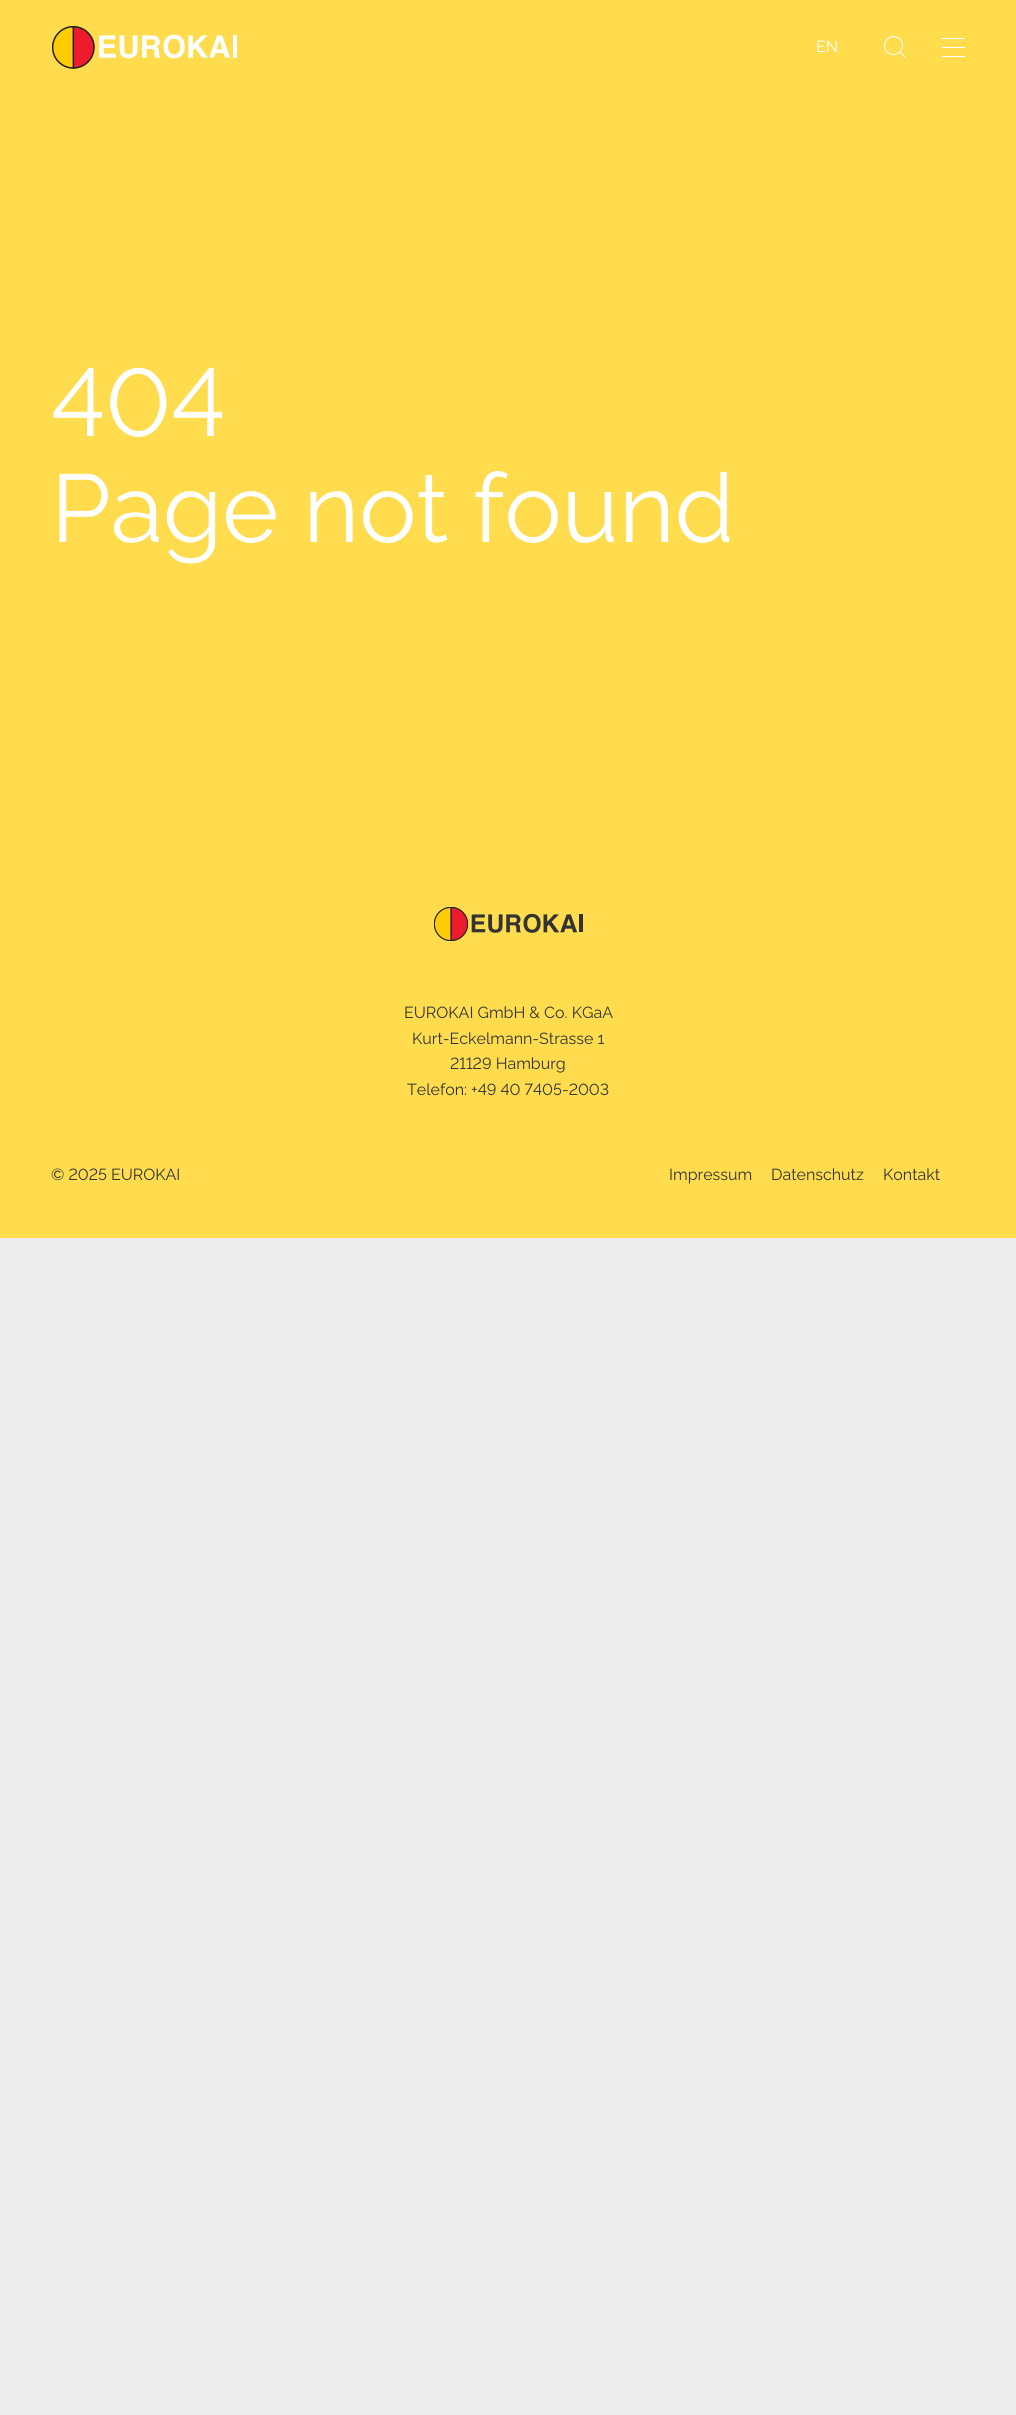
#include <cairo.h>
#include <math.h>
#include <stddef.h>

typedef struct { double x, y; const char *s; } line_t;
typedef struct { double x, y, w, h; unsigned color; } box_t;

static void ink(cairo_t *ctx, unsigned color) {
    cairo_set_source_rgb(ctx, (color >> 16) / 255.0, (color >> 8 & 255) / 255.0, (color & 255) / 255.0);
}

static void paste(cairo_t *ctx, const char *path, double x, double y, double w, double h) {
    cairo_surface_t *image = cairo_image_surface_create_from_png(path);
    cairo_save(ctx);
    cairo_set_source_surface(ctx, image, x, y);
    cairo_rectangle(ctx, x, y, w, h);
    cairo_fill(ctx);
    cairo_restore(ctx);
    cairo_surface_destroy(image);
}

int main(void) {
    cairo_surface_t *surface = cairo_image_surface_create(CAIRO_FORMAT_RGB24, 1016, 2415);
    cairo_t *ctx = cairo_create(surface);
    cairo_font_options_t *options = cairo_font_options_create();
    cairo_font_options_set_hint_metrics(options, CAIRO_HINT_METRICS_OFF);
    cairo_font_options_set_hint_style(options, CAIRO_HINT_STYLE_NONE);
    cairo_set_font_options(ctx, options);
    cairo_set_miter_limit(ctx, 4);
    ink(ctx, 0xECECEC);
    cairo_paint(ctx);
    ink(ctx, 0xFFDC4E);
    cairo_rectangle(ctx, 0, 0, 1016, 1238);
    cairo_fill(ctx);
    paste(ctx, "media/1.png", 52, 26, 185, 43);
    cairo_select_font_face(ctx, "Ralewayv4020", CAIRO_FONT_SLANT_NORMAL, CAIRO_FONT_WEIGHT_NORMAL);
    cairo_set_font_size(ctx, 16);
    ink(ctx, 0xFFFFFF);
    cairo_move_to(ctx, 816, 52);
    cairo_show_text(ctx, "EN");
    cairo_new_path(ctx);
    cairo_arc(ctx, 893.5, 45.5, 9, 0, 2 * M_PI);
    cairo_set_line_width(ctx, 1);
    cairo_stroke(ctx);
    cairo_new_path(ctx);
    cairo_move_to(ctx, 900, 52);
    cairo_line_to(ctx, 905.5, 57.5);
    cairo_stroke(ctx);
    {
        static const box_t items[] = {
            {941, 56, 24, 1, 0xFFFFFF},
            {941, 38, 24, 1, 0xFFFFFF},
            {941, 47, 24, 1, 0xFFFFFF},
        };
        for (size_t i = 0; i < sizeof items / sizeof *items; i++) {
            ink(ctx, items[i].color);
            cairo_rectangle(ctx, items[i].x, items[i].y, items[i].w, items[i].h);
            cairo_fill(ctx);
        }
    }
    cairo_select_font_face(ctx, "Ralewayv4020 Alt", CAIRO_FONT_SLANT_NORMAL, CAIRO_FONT_WEIGHT_NORMAL);
    cairo_set_font_size(ctx, 96);
    cairo_move_to(ctx, 51, 436);
    cairo_show_text(ctx, "404");
    cairo_select_font_face(ctx, "Ralewayv4020", CAIRO_FONT_SLANT_NORMAL, CAIRO_FONT_WEIGHT_NORMAL);
    cairo_move_to(ctx, 51, 542);
    cairo_show_text(ctx, "Page not found");
    paste(ctx, "media/2.png", 434, 907, 149, 34);
    cairo_set_font_size(ctx, 16);
    ink(ctx, 0x333333);
    cairo_move_to(ctx, 404, 1018);
    cairo_show_text(ctx, "EUROKAI GmbH & Co. KGaA");
    cairo_move_to(ctx, 412, 1044);
    cairo_show_text(ctx, "Kurt-Eckelmann-Strasse 1");
    cairo_select_font_face(ctx, "Ralewayv4020 Alt", CAIRO_FONT_SLANT_NORMAL, CAIRO_FONT_WEIGHT_NORMAL);
    cairo_move_to(ctx, 450, 1069);
    cairo_show_text(ctx, "21129 Hamburg");
    cairo_select_font_face(ctx, "Ralewayv4020", CAIRO_FONT_SLANT_NORMAL, CAIRO_FONT_WEIGHT_NORMAL);
    cairo_move_to(ctx, 407, 1095);
    cairo_show_text(ctx, "Telefon:");
    cairo_select_font_face(ctx, "Ralewayv4020 Alt", CAIRO_FONT_SLANT_NORMAL, CAIRO_FONT_WEIGHT_NORMAL);
    cairo_move_to(ctx, 471, 1095);
    cairo_show_text(ctx, "+49 40 7405-2003");
    cairo_move_to(ctx, 51, 1180);
    cairo_show_text(ctx, "© 2025 EUROKAI");
    cairo_select_font_face(ctx, "Ralewayv4020", CAIRO_FONT_SLANT_NORMAL, CAIRO_FONT_WEIGHT_NORMAL);
    {
        static const line_t items[] = {
            {669, 1180, "Impressum"},
            {771, 1180, "Datenschutz"},
            {883, 1180, "Kontakt"},
        };
        for (size_t i = 0; i < sizeof items / sizeof *items; i++) {
            cairo_move_to(ctx, items[i].x, items[i].y);
            cairo_show_text(ctx, items[i].s);
        }
    }
    cairo_surface_write_to_png(surface, "image.png");
    cairo_font_options_destroy(options);
    cairo_destroy(ctx);
    cairo_surface_destroy(surface);
    return 0;
}
